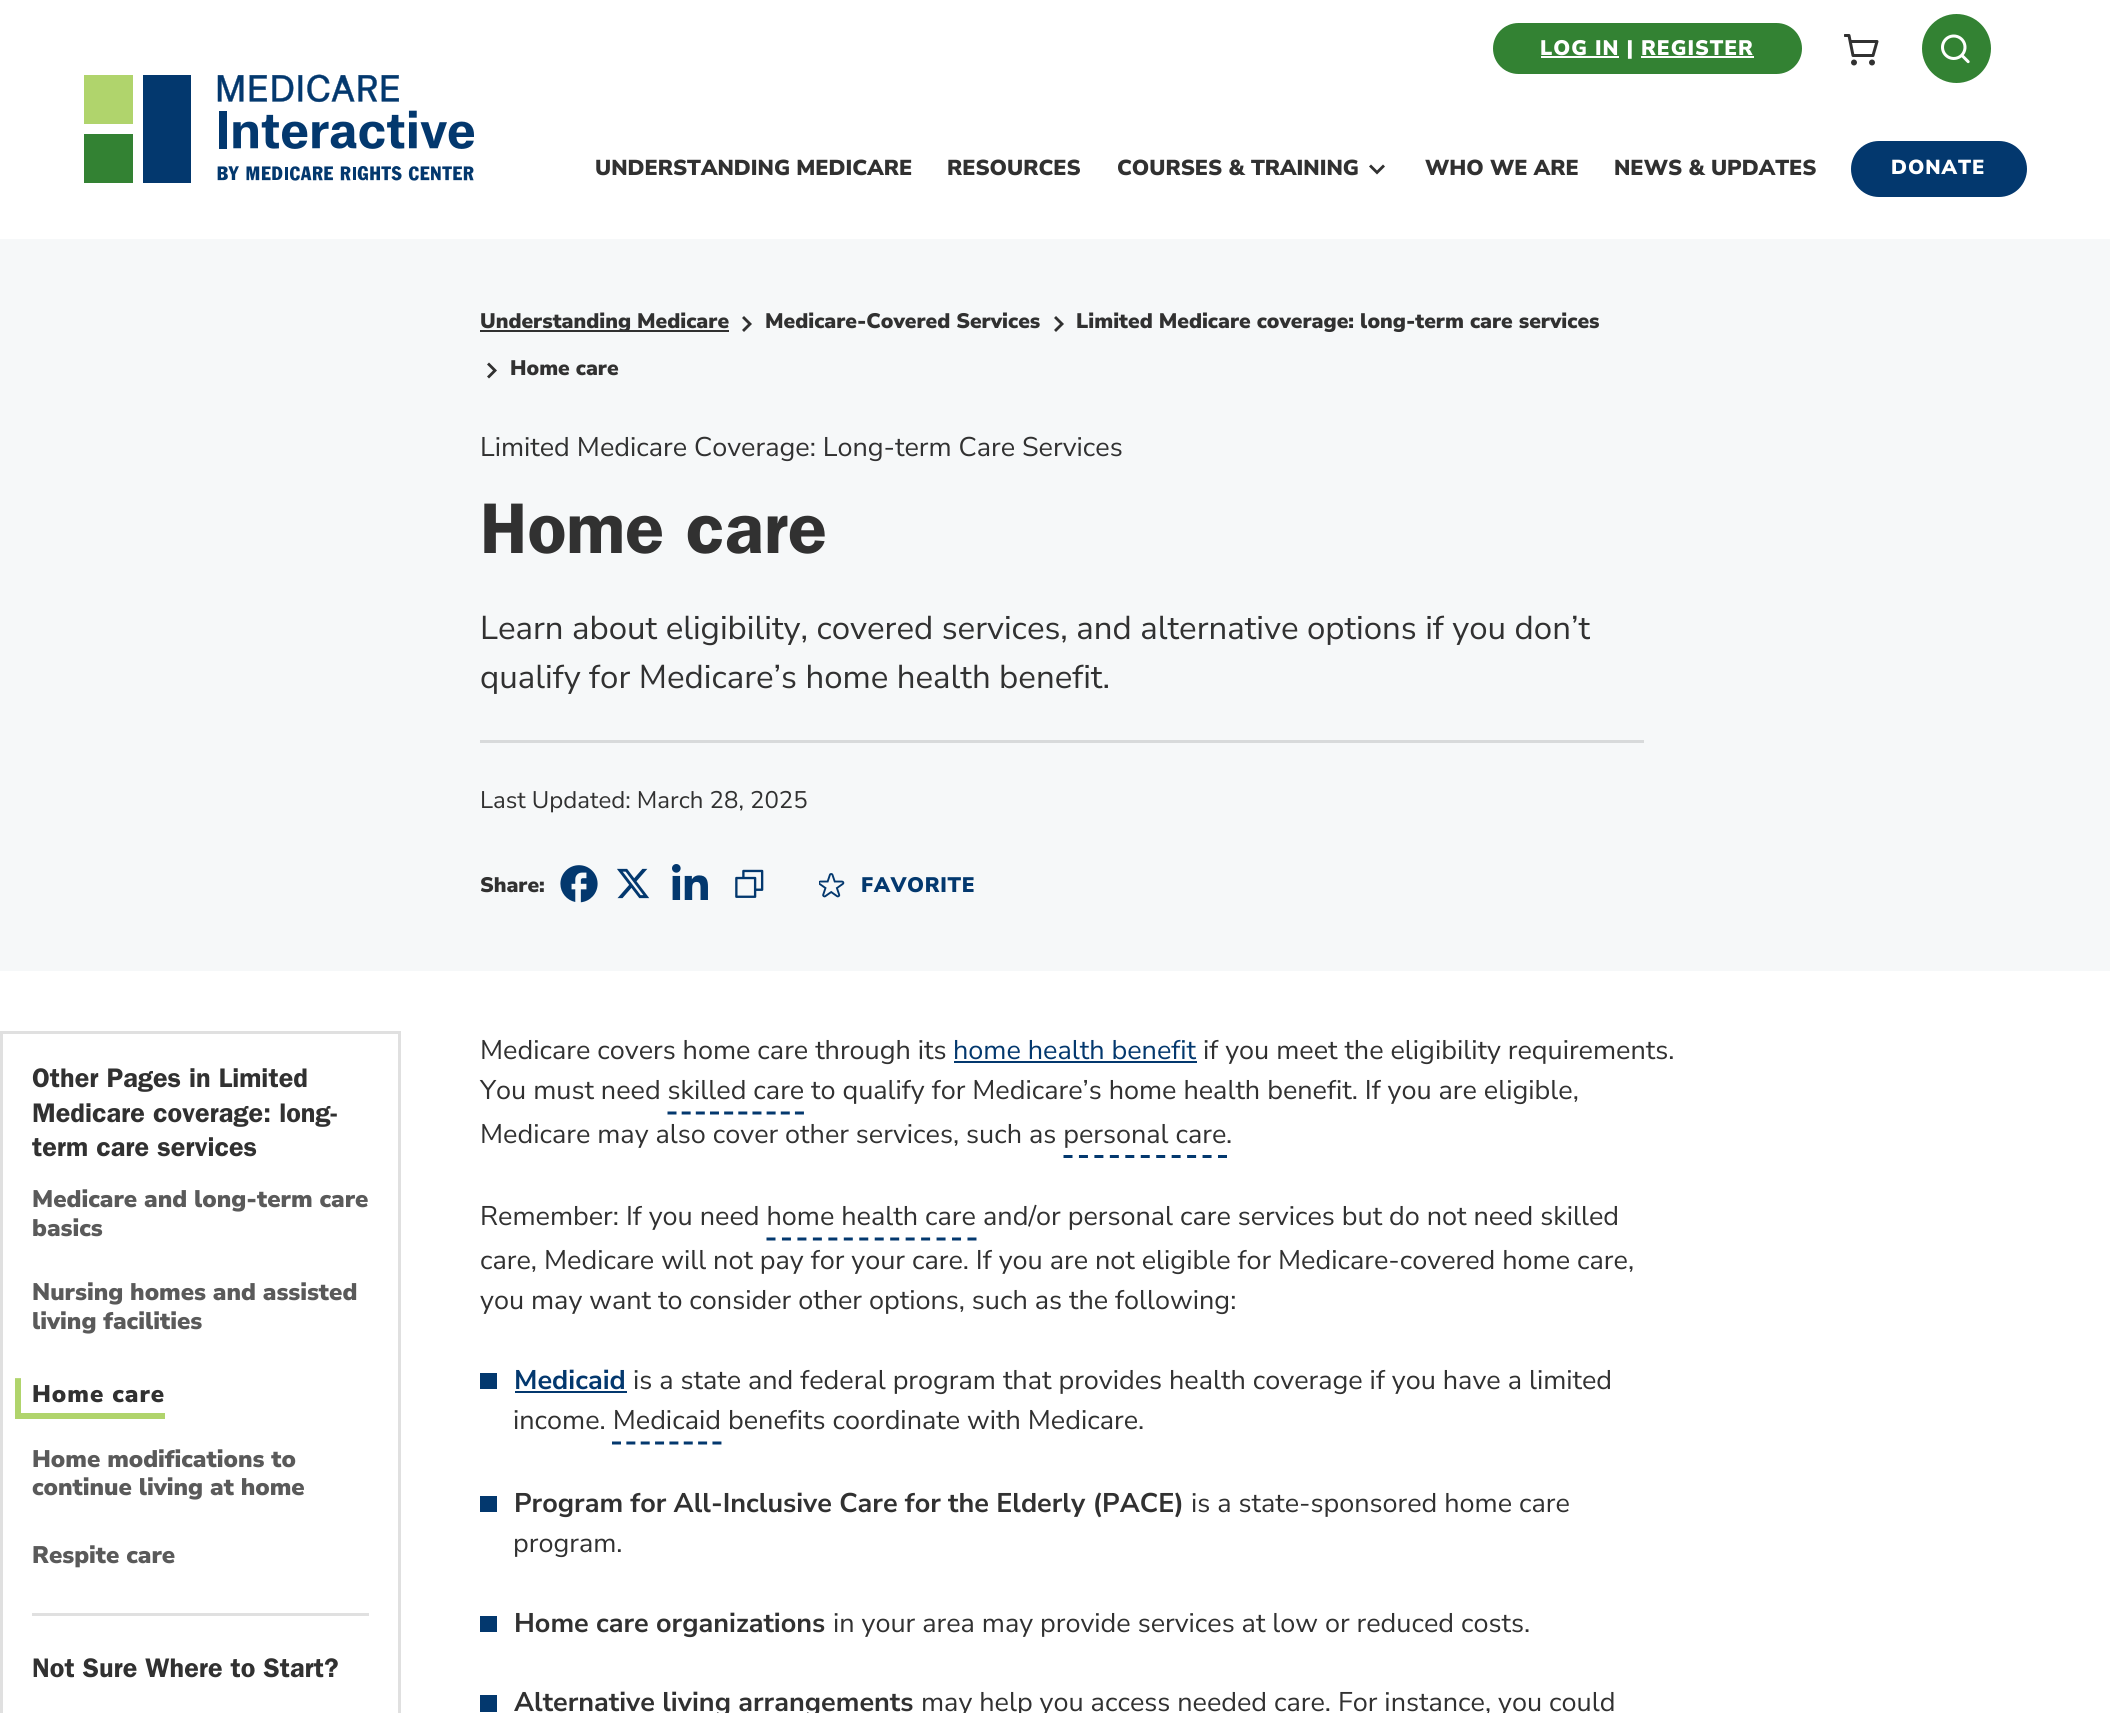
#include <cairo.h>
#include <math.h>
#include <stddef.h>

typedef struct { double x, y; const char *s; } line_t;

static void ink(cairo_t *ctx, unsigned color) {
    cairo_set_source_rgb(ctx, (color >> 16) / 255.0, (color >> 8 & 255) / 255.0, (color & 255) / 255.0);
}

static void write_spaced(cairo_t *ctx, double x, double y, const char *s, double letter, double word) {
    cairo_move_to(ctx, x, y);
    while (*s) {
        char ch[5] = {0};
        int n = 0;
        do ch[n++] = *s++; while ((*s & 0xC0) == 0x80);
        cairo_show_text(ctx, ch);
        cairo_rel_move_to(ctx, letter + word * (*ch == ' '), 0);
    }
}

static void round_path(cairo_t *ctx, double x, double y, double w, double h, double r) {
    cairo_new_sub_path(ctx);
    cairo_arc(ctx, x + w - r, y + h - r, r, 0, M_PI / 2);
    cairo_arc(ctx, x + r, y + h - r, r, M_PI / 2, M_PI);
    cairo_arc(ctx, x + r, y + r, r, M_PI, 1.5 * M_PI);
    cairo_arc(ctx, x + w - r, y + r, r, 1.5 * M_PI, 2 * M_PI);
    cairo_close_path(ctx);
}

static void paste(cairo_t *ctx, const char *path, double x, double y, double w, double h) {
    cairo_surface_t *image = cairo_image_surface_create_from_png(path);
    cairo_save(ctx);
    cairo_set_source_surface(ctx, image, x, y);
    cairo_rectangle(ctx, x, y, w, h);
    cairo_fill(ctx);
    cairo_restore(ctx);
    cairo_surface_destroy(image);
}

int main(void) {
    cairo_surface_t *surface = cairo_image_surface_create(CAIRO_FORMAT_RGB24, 2110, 1713);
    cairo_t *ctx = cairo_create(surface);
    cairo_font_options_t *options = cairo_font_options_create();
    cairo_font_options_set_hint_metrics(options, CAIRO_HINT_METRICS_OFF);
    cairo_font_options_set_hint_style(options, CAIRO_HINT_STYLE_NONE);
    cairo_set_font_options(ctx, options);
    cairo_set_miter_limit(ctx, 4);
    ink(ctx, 0xFFFFFF);
    cairo_paint(ctx);
    paste(ctx, "media/1.png", 84, 74, 390, 109);
    ink(ctx, 0x338233);
    round_path(ctx, 1493, 23, 309, 51, 25.5);
    cairo_fill(ctx);
    ink(ctx, 0xFFFFFF);
    cairo_rectangle(ctx, 1541, 56, 78, 2);
    cairo_fill(ctx);
    cairo_select_font_face(ctx, "Nunito Sans Black", CAIRO_FONT_SLANT_NORMAL, CAIRO_FONT_WEIGHT_NORMAL);
    cairo_set_font_size(ctx, 21);
    write_spaced(ctx, 1540, 55, "LOG IN | REGISTER", 1, 0);
    cairo_rectangle(ctx, 1641, 56, 113, 2);
    cairo_fill(ctx);
    paste(ctx, "media/2.png", 1844, 34, 35, 32);
    ink(ctx, 0x338233);
    cairo_arc(ctx, 1956.5, 48.5, 34.5, 0, 2 * M_PI);
    cairo_fill(ctx);
    paste(ctx, "media/3.png", 1941, 34, 29, 30);
    cairo_set_font_size(ctx, 21.6);
    ink(ctx, 0x313131);
    {
        static const line_t items[] = {
            {595, 175, "UNDERSTANDING MEDICARE"},
            {947, 175, "RESOURCES"},
            {1117, 175, "COURSES & TRAINING"},
        };
        for (size_t i = 0; i < sizeof items / sizeof *items; i++) {
            cairo_move_to(ctx, items[i].x, items[i].y);
            cairo_show_text(ctx, items[i].s);
        }
    }
    paste(ctx, "media/4.png", 1369, 164, 16, 11);
    cairo_move_to(ctx, 1425, 175);
    cairo_show_text(ctx, "WHO WE ARE");
    cairo_move_to(ctx, 1614, 175);
    cairo_show_text(ctx, "NEWS & UPDATES");
    ink(ctx, 0x03386E);
    round_path(ctx, 1851, 141, 176, 56, 28);
    cairo_fill(ctx);
    cairo_set_font_size(ctx, 20.25);
    ink(ctx, 0xFFFFFF);
    write_spaced(ctx, 1891, 174, "DONATE", 1, 0);
    ink(ctx, 0xF6F8F9);
    cairo_rectangle(ctx, 0, 239, 2110, 732);
    cairo_fill(ctx);
    ink(ctx, 0x313131);
    cairo_rectangle(ctx, 480, 330, 249, 2);
    cairo_fill(ctx);
    cairo_set_font_size(ctx, 21);
    cairo_move_to(ctx, 480, 328);
    cairo_show_text(ctx, "Understanding Medicare");
    paste(ctx, "media/5.png", 742, 316, 10, 16);
    cairo_move_to(ctx, 765, 328);
    cairo_show_text(ctx, "Medicare-Covered Services");
    paste(ctx, "media/5.png", 1054, 316, 10, 16);
    cairo_move_to(ctx, 1076, 328);
    cairo_show_text(ctx, "Limited Medicare coverage: long-term care services");
    paste(ctx, "media/6.png", 487, 362, 10, 17);
    cairo_move_to(ctx, 510, 375);
    cairo_show_text(ctx, "Home care");
    cairo_select_font_face(ctx, "Nunito Sans", CAIRO_FONT_SLANT_NORMAL, CAIRO_FONT_WEIGHT_NORMAL);
    cairo_set_font_size(ctx, 27);
    cairo_move_to(ctx, 480, 456);
    cairo_show_text(ctx, "Limited Medicare Coverage: Long-term Care Services");
    cairo_select_font_face(ctx, "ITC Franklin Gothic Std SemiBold", CAIRO_FONT_SLANT_NORMAL, CAIRO_FONT_WEIGHT_NORMAL);
    cairo_set_font_size(ctx, 72);
    cairo_move_to(ctx, 480, 553);
    cairo_show_text(ctx, "Home care");
    ink(ctx, 0xD8DADB);
    cairo_rectangle(ctx, 480, 740, 1164, 3);
    cairo_fill(ctx);
    cairo_select_font_face(ctx, "Nunito Sans", CAIRO_FONT_SLANT_NORMAL, CAIRO_FONT_WEIGHT_NORMAL);
    cairo_set_font_size(ctx, 33);
    ink(ctx, 0x313131);
    cairo_move_to(ctx, 480, 639);
    cairo_show_text(ctx, "Learn about eligibility, covered services, and alternative options if you don’t");
    cairo_move_to(ctx, 480, 688);
    cairo_show_text(ctx, "qualify for Medicare’s home health benefit.");
    cairo_set_font_size(ctx, 24);
    cairo_move_to(ctx, 480, 808);
    cairo_show_text(ctx, "Last Updated: March 28, 2025");
    cairo_select_font_face(ctx, "Nunito Sans Black", CAIRO_FONT_SLANT_NORMAL, CAIRO_FONT_WEIGHT_NORMAL);
    cairo_set_font_size(ctx, 21);
    cairo_move_to(ctx, 480, 892);
    cairo_show_text(ctx, "Share:");
    paste(ctx, "media/7.png", 560, 865, 38, 38);
    paste(ctx, "media/8.png", 617, 868, 33, 31);
    paste(ctx, "media/9.png", 672, 864, 36, 36);
    paste(ctx, "media/10.png", 735, 869, 29, 29);
    paste(ctx, "media/11.png", 819, 873, 26, 25);
    ink(ctx, 0x03386E);
    write_spaced(ctx, 861, 892, "FAVORITE", 0.75, 0);
    cairo_rectangle(ctx, 1.5, 1032.5, 398, 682);
    ink(ctx, 0xE0E0E0);
    cairo_set_line_width(ctx, 3);
    cairo_stroke(ctx);
    cairo_select_font_face(ctx, "ITC Franklin Gothic Std SemiBold", CAIRO_FONT_SLANT_NORMAL, CAIRO_FONT_WEIGHT_NORMAL);
    cairo_set_font_size(ctx, 27);
    ink(ctx, 0x313131);
    {
        static const line_t items[] = {
            {32, 1087, "Other Pages in Limited"},
            {32, 1122, "Medicare coverage: long-"},
            {32, 1156, "term care services"},
        };
        for (size_t i = 0; i < sizeof items / sizeof *items; i++) {
            cairo_move_to(ctx, items[i].x, items[i].y);
            cairo_show_text(ctx, items[i].s);
        }
    }
    ink(ctx, 0xE0E0E0);
    cairo_rectangle(ctx, 32, 1613, 337, 3);
    cairo_fill(ctx);
    cairo_select_font_face(ctx, "Nunito Sans Black", CAIRO_FONT_SLANT_NORMAL, CAIRO_FONT_WEIGHT_NORMAL);
    cairo_set_font_size(ctx, 24);
    ink(ctx, 0x5A5A5A);
    {
        static const line_t items[] = {
            {32, 1207, "Medicare and long-term care"},
            {32, 1236, "basics"},
            {32, 1300, "Nursing homes and assisted"},
            {32, 1329, "living facilities"},
        };
        for (size_t i = 0; i < sizeof items / sizeof *items; i++) {
            cairo_move_to(ctx, items[i].x, items[i].y);
            cairo_show_text(ctx, items[i].s);
        }
    }
    ink(ctx, 0xB0D46C);
    cairo_rectangle(ctx, 32, 1413, 133, 6);
    cairo_fill(ctx);
    cairo_new_path(ctx);
    cairo_move_to(ctx, 32.5, 1416);
    cairo_line_to(ctx, 178, 1416);
    cairo_line_to(ctx, 178, 1372.5);
    cairo_line_to(ctx, 18, 1372.5);
    cairo_line_to(ctx, 18, 1416);
    cairo_close_path(ctx);
    cairo_set_line_width(ctx, 6);
    cairo_set_dash(ctx, (double[]){354.92, 354.92}, 2, 355.2);
    cairo_stroke(ctx);
    ink(ctx, 0x313131);
    write_spaced(ctx, 32, 1402, "Home care", 1, 0);
    ink(ctx, 0x5A5A5A);
    {
        static const line_t items[] = {
            {32, 1467, "Home modifications to"},
            {32, 1495, "continue living at home"},
            {32, 1563, "Respite care"},
        };
        for (size_t i = 0; i < sizeof items / sizeof *items; i++) {
            cairo_move_to(ctx, items[i].x, items[i].y);
            cairo_show_text(ctx, items[i].s);
        }
    }
    cairo_select_font_face(ctx, "ITC Franklin Gothic Std SemiBold", CAIRO_FONT_SLANT_NORMAL, CAIRO_FONT_WEIGHT_NORMAL);
    cairo_set_font_size(ctx, 27);
    ink(ctx, 0x313131);
    cairo_move_to(ctx, 32, 1677);
    cairo_show_text(ctx, "Not Sure Where to Start?");
    cairo_select_font_face(ctx, "Nunito Sans", CAIRO_FONT_SLANT_NORMAL, CAIRO_FONT_WEIGHT_NORMAL);
    cairo_move_to(ctx, 480, 1059);
    cairo_show_text(ctx, "Medicare covers home care through its");
    ink(ctx, 0x03386E);
    cairo_move_to(ctx, 953, 1059);
    cairo_show_text(ctx, "home health benefit");
    cairo_rectangle(ctx, 954, 1061, 243, 2);
    cairo_fill(ctx);
    ink(ctx, 0x313131);
    {
        static const line_t items[] = {
            {1203, 1059, "if you meet the eligibility requirements."},
            {480, 1099, "You must need skilled care"},
            {811, 1099, "to qualify for Medicare’s home health benefit. If you are eligible,"},
        };
        for (size_t i = 0; i < sizeof items / sizeof *items; i++) {
            cairo_move_to(ctx, items[i].x, items[i].y);
            cairo_show_text(ctx, items[i].s);
        }
    }
    cairo_new_path(ctx);
    cairo_move_to(ctx, 667.5, 1113);
    cairo_line_to(ctx, 804, 1113);
    ink(ctx, 0x03386E);
    cairo_set_line_width(ctx, 3);
    cairo_set_dash(ctx, (double[]){9, 5.16}, 2, 0);
    cairo_stroke(ctx);
    ink(ctx, 0x313131);
    cairo_move_to(ctx, 480, 1143);
    cairo_show_text(ctx, "Medicare may also cover other services, such as personal care");
    cairo_move_to(ctx, 1226, 1143);
    cairo_show_text(ctx, ".");
    cairo_new_path(ctx);
    cairo_move_to(ctx, 1063.5, 1156.5);
    cairo_line_to(ctx, 1227, 1156.5);
    ink(ctx, 0x03386E);
    cairo_set_dash(ctx, (double[]){9, 6.45}, 2, 0);
    cairo_stroke(ctx);
    ink(ctx, 0x313131);
    cairo_move_to(ctx, 480, 1225);
    cairo_show_text(ctx, "Remember: If you need home health care");
    cairo_move_to(ctx, 983, 1225);
    cairo_show_text(ctx, "and/or personal care services but do not need skilled");
    cairo_new_path(ctx);
    cairo_move_to(ctx, 766.5, 1239);
    cairo_line_to(ctx, 976.5, 1239);
    ink(ctx, 0x03386E);
    cairo_set_dash(ctx, (double[]){9, 6.46}, 2, 0);
    cairo_stroke(ctx);
    ink(ctx, 0x313131);
    cairo_move_to(ctx, 480, 1269);
    cairo_show_text(ctx, "care, Medicare will not pay for your care. If you are not eligible for Medicare-covered home care,");
    cairo_move_to(ctx, 480, 1309);
    cairo_show_text(ctx, "you may want to consider other options, such as the following:");
    ink(ctx, 0x03386E);
    cairo_rectangle(ctx, 480, 1373, 17, 16);
    cairo_fill(ctx);
    cairo_select_font_face(ctx, "Nunito Sans", CAIRO_FONT_SLANT_NORMAL, CAIRO_FONT_WEIGHT_BOLD);
    cairo_move_to(ctx, 514, 1389);
    cairo_show_text(ctx, "Medicaid");
    cairo_rectangle(ctx, 515, 1391, 112, 2);
    cairo_fill(ctx);
    cairo_select_font_face(ctx, "Nunito Sans", CAIRO_FONT_SLANT_NORMAL, CAIRO_FONT_WEIGHT_NORMAL);
    ink(ctx, 0x313131);
    {
        static const line_t items[] = {
            {633, 1389, "is a state and federal program that provides health coverage if you have a limited"},
            {513, 1429, "income. Medicaid"},
            {728, 1429, "benefits coordinate with Medicare."},
        };
        for (size_t i = 0; i < sizeof items / sizeof *items; i++) {
            cairo_move_to(ctx, items[i].x, items[i].y);
            cairo_show_text(ctx, items[i].s);
        }
    }
    cairo_new_path(ctx);
    cairo_move_to(ctx, 612, 1443);
    cairo_line_to(ctx, 721.5, 1443);
    ink(ctx, 0x03386E);
    cairo_set_dash(ctx, (double[]){9, 5.35}, 2, 0);
    cairo_stroke(ctx);
    cairo_rectangle(ctx, 480, 1496, 17, 16);
    cairo_fill(ctx);
    cairo_select_font_face(ctx, "Nunito Sans", CAIRO_FONT_SLANT_NORMAL, CAIRO_FONT_WEIGHT_BOLD);
    ink(ctx, 0x313131);
    cairo_move_to(ctx, 514, 1512);
    cairo_show_text(ctx, "Program for All-Inclusive Care for the Elderly (PACE)");
    cairo_select_font_face(ctx, "Nunito Sans", CAIRO_FONT_SLANT_NORMAL, CAIRO_FONT_WEIGHT_NORMAL);
    cairo_move_to(ctx, 1191, 1512);
    cairo_show_text(ctx, "is a state-sponsored home care");
    cairo_move_to(ctx, 513, 1552);
    cairo_show_text(ctx, "program.");
    ink(ctx, 0x03386E);
    cairo_rectangle(ctx, 480, 1616, 17, 16);
    cairo_fill(ctx);
    cairo_select_font_face(ctx, "Nunito Sans", CAIRO_FONT_SLANT_NORMAL, CAIRO_FONT_WEIGHT_BOLD);
    ink(ctx, 0x313131);
    cairo_move_to(ctx, 514, 1632);
    cairo_show_text(ctx, "Home care organizations");
    cairo_select_font_face(ctx, "Nunito Sans", CAIRO_FONT_SLANT_NORMAL, CAIRO_FONT_WEIGHT_NORMAL);
    cairo_move_to(ctx, 833, 1632);
    cairo_show_text(ctx, "in your area may provide services at low or reduced costs.");
    ink(ctx, 0x03386E);
    cairo_rectangle(ctx, 480, 1695, 17, 17);
    cairo_fill(ctx);
    cairo_select_font_face(ctx, "Nunito Sans", CAIRO_FONT_SLANT_NORMAL, CAIRO_FONT_WEIGHT_BOLD);
    ink(ctx, 0x313131);
    cairo_move_to(ctx, 514, 1711);
    cairo_show_text(ctx, "Alternative living arrangements");
    cairo_select_font_face(ctx, "Nunito Sans", CAIRO_FONT_SLANT_NORMAL, CAIRO_FONT_WEIGHT_NORMAL);
    cairo_move_to(ctx, 921, 1711);
    cairo_show_text(ctx, "may help you access needed care. For instance, you could");
    cairo_surface_write_to_png(surface, "image.png");
    cairo_font_options_destroy(options);
    cairo_destroy(ctx);
    cairo_surface_destroy(surface);
    return 0;
}
